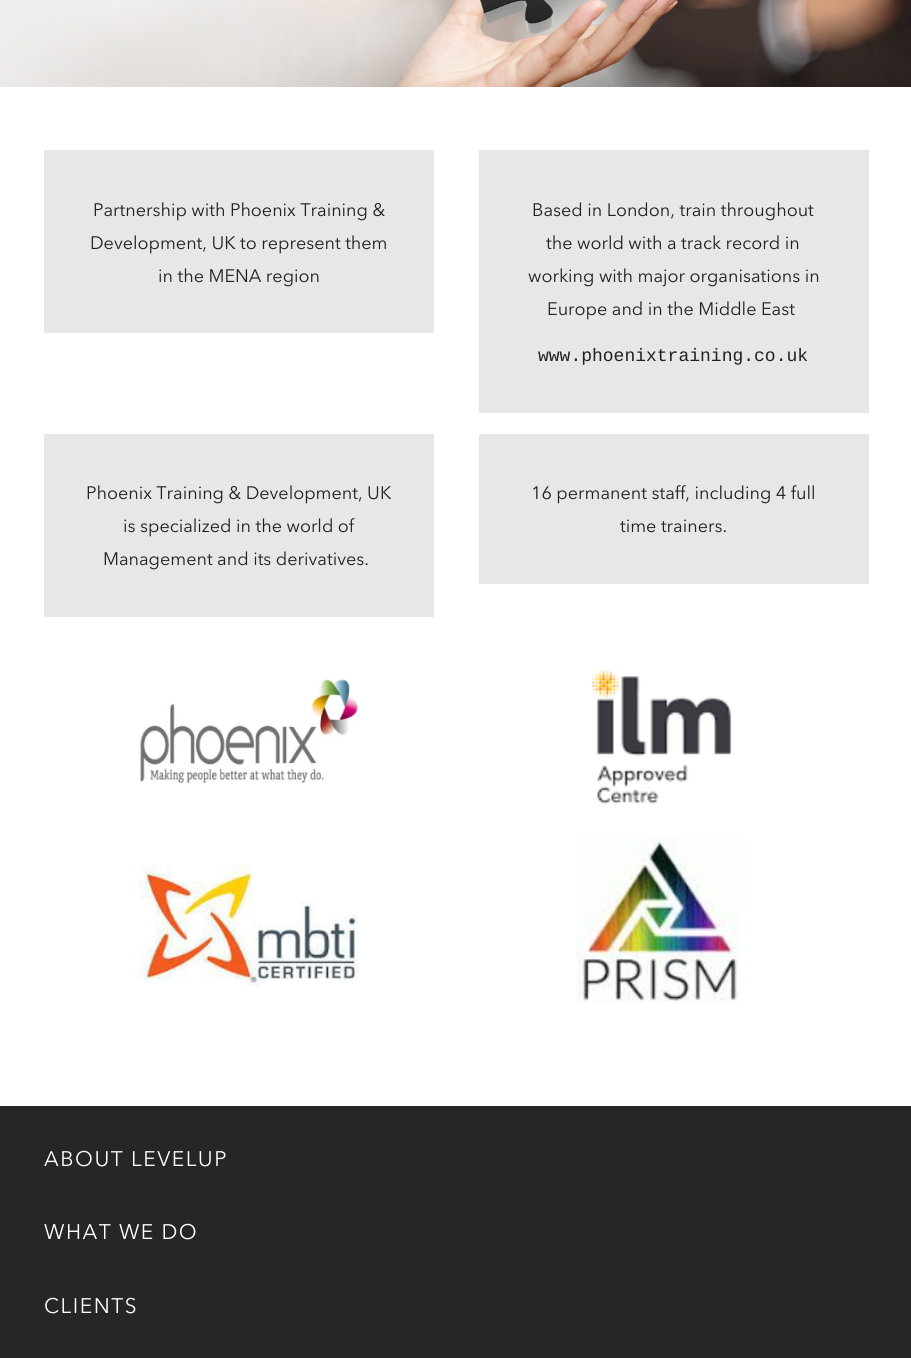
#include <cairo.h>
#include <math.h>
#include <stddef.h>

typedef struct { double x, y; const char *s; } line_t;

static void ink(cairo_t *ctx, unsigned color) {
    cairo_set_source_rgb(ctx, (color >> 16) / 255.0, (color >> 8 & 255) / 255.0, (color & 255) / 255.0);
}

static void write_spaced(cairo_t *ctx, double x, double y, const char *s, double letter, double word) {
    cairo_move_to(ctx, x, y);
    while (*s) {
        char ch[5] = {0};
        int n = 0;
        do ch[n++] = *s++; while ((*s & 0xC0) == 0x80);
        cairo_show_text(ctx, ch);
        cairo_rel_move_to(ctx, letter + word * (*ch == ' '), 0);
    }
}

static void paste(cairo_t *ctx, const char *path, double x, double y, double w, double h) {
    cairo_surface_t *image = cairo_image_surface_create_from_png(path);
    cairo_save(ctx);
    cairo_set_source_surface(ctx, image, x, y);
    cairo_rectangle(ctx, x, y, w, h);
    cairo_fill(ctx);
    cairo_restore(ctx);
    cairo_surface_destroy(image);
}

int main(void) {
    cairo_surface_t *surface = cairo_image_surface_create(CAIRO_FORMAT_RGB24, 911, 1358);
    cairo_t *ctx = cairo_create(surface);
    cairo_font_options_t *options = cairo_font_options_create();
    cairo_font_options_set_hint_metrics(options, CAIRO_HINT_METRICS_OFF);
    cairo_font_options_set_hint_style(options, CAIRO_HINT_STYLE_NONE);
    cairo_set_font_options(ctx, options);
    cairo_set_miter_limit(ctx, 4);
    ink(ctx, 0xFFFFFF);
    cairo_paint(ctx);
    paste(ctx, "media/1.png", 0, 0, 911, 87);
    ink(ctx, 0xE9E7E5);
    cairo_rectangle(ctx, 44, 150, 390, 183);
    cairo_fill(ctx);
    cairo_select_font_face(ctx, "Avenir Next", CAIRO_FONT_SLANT_NORMAL, CAIRO_FONT_WEIGHT_NORMAL);
    cairo_set_font_size(ctx, 18);
    ink(ctx, 0x202124);
    {
        static const line_t items[] = {
            {93, 216, "Partnership with Phoenix Training &"},
            {90, 249, "Development, UK to represent them"},
            {158, 282, "in the MENA region"},
        };
        for (size_t i = 0; i < sizeof items / sizeof *items; i++) {
            cairo_move_to(ctx, items[i].x, items[i].y);
            cairo_show_text(ctx, items[i].s);
        }
    }
    ink(ctx, 0xE9E7E5);
    cairo_rectangle(ctx, 479, 150, 390, 263);
    cairo_fill(ctx);
    ink(ctx, 0x202124);
    {
        static const line_t items[] = {
            {532, 216, "Based in London, train throughout"},
            {546, 249, "the world with a track record in"},
            {528, 282, "working with major organisations in"},
            {547, 315, "Europe and in the Middle East"},
        };
        for (size_t i = 0; i < sizeof items / sizeof *items; i++) {
            cairo_move_to(ctx, items[i].x, items[i].y);
            cairo_show_text(ctx, items[i].s);
        }
    }
    cairo_select_font_face(ctx, "Liberation Mono", CAIRO_FONT_SLANT_NORMAL, CAIRO_FONT_WEIGHT_NORMAL);
    cairo_move_to(ctx, 538, 361);
    cairo_show_text(ctx, "www.phoenixtraining.co.uk");
    ink(ctx, 0xE9E7E5);
    cairo_rectangle(ctx, 44, 434, 390, 183);
    cairo_fill(ctx);
    cairo_select_font_face(ctx, "Avenir Next", CAIRO_FONT_SLANT_NORMAL, CAIRO_FONT_WEIGHT_NORMAL);
    ink(ctx, 0x202124);
    {
        static const line_t items[] = {
            {86, 499, "Phoenix Training & Development, UK"},
            {123, 532, "is specialized in the world of"},
            {103, 565, "Management and its derivatives."},
        };
        for (size_t i = 0; i < sizeof items / sizeof *items; i++) {
            cairo_move_to(ctx, items[i].x, items[i].y);
            cairo_show_text(ctx, items[i].s);
        }
    }
    ink(ctx, 0xE9E7E5);
    cairo_rectangle(ctx, 479, 434, 390, 150);
    cairo_fill(ctx);
    ink(ctx, 0x202124);
    cairo_move_to(ctx, 531, 499);
    cairo_show_text(ctx, "16 permanent staff, including 4 full");
    cairo_move_to(ctx, 620, 532);
    cairo_show_text(ctx, "time trainers.");
    paste(ctx, "media/2.png", 139, 679, 221, 105);
    paste(ctx, "media/3.png", 591, 669, 141, 136);
    paste(ctx, "media/4.png", 139, 865, 220, 122);
    paste(ctx, "media/5.png", 576, 838, 164, 165);
    ink(ctx, 0x262626);
    cairo_rectangle(ctx, 0, 1106, 911, 252);
    cairo_fill(ctx);
    cairo_set_font_size(ctx, 21);
    ink(ctx, 0xFFFFFF);
    {
        static const line_t items[] = {
            {44, 1166, "ABOUT LEVELUP"},
            {44, 1239, "WHAT WE DO"},
            {44, 1313, "CLIENTS"},
        };
        for (size_t i = 0; i < sizeof items / sizeof *items; i++) {
            write_spaced(ctx, items[i].x, items[i].y, items[i].s, 1.5, 0);
        }
    }
    cairo_surface_write_to_png(surface, "image.png");
    cairo_font_options_destroy(options);
    cairo_destroy(ctx);
    cairo_surface_destroy(surface);
    return 0;
}
